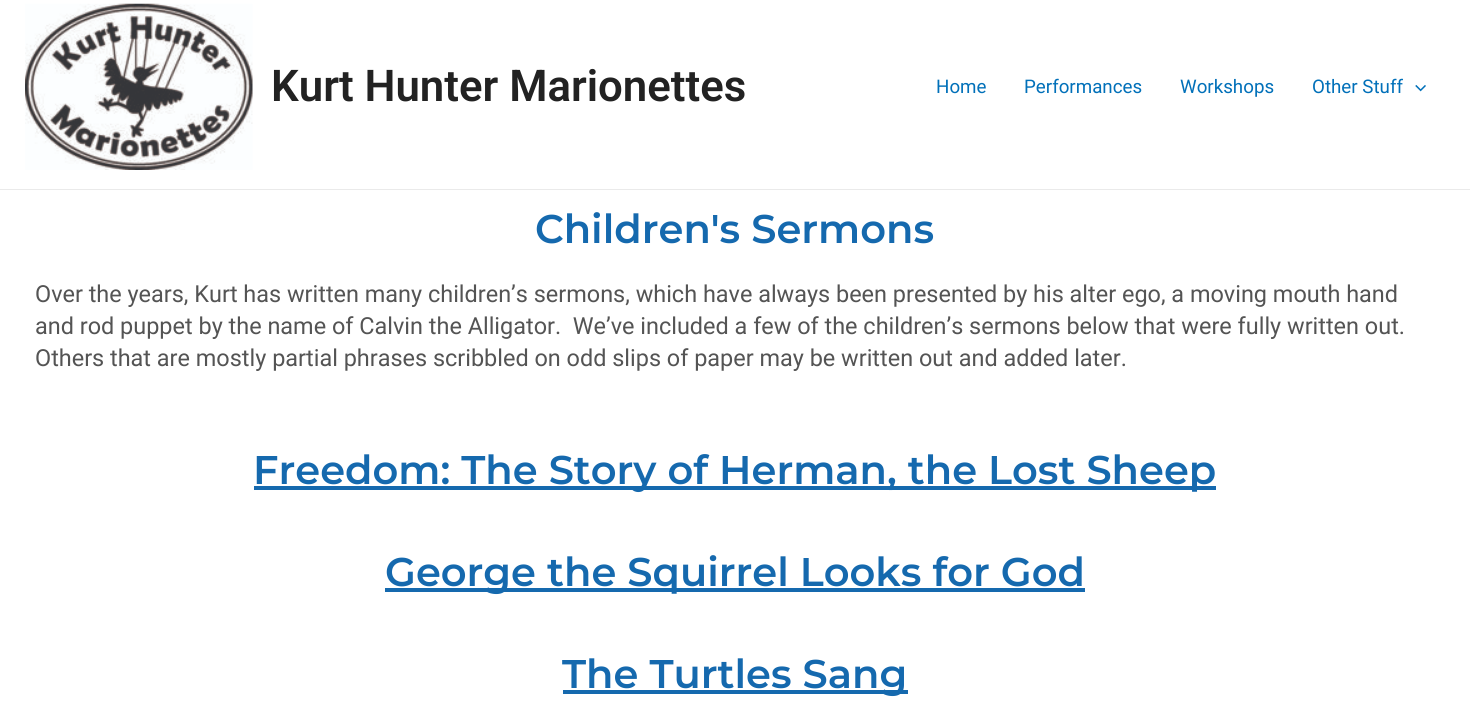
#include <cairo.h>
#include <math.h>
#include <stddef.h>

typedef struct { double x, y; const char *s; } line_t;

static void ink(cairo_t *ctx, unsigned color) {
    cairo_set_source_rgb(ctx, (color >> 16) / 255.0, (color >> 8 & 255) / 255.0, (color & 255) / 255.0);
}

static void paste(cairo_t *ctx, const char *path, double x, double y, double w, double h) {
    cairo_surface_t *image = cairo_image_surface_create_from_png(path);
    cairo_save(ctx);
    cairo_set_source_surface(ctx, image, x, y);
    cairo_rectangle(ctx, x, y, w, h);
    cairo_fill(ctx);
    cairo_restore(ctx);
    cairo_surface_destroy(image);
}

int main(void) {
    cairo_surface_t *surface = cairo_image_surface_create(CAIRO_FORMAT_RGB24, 1470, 720);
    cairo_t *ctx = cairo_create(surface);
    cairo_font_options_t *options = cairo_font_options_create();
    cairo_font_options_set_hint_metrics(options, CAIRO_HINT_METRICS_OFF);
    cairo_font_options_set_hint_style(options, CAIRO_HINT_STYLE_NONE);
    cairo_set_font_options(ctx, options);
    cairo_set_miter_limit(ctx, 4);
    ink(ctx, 0xFFFFFF);
    cairo_paint(ctx);
    ink(ctx, 0xEAEAEA);
    cairo_rectangle(ctx, 0, 189, 1470, 1);
    cairo_fill(ctx);
    paste(ctx, "media/1.png", 25, 3, 228, 167);
    cairo_select_font_face(ctx, "Roboto SemiBold", CAIRO_FONT_SLANT_NORMAL, CAIRO_FONT_WEIGHT_NORMAL);
    cairo_set_font_size(ctx, 43.75);
    ink(ctx, 0x222222);
    cairo_move_to(ctx, 271, 101);
    cairo_show_text(ctx, "Kurt Hunter Marionettes");
    cairo_select_font_face(ctx, "Roboto", CAIRO_FONT_SLANT_NORMAL, CAIRO_FONT_WEIGHT_NORMAL);
    cairo_set_font_size(ctx, 18.75);
    ink(ctx, 0x0170B9);
    {
        static const line_t items[] = {
            {936, 93, "Home"},
            {1024, 93, "Performances"},
            {1180, 93, "Workshops"},
            {1312, 93, "Other Stuff"},
        };
        for (size_t i = 0; i < sizeof items / sizeof *items; i++) {
            cairo_move_to(ctx, items[i].x, items[i].y);
            cairo_show_text(ctx, items[i].s);
        }
    }
    paste(ctx, "media/2.png", 1415, 85, 11, 7);
    cairo_select_font_face(ctx, "Montserrat SemiBold", CAIRO_FONT_SLANT_NORMAL, CAIRO_FONT_WEIGHT_NORMAL);
    cairo_set_font_size(ctx, 40);
    ink(ctx, 0x1569AE);
    cairo_move_to(ctx, 535, 243);
    cairo_show_text(ctx, "Children's Sermons");
    cairo_select_font_face(ctx, "Roboto", CAIRO_FONT_SLANT_NORMAL, CAIRO_FONT_WEIGHT_NORMAL);
    cairo_set_font_size(ctx, 23.45);
    ink(ctx, 0x545454);
    {
        static const line_t items[] = {
            {35, 302, "Over the years, Kurt has written many children’s sermons, which have always been presented by his alter ego, a moving mouth hand"},
            {35, 334, "and rod puppet by the name of Calvin the Alligator.  We’ve included a few of the children’s sermons below that were fully written out."},
            {35, 366, "Others that are mostly partial phrases scribbled on odd slips of paper may be written out and added later."},
        };
        for (size_t i = 0; i < sizeof items / sizeof *items; i++) {
            cairo_move_to(ctx, items[i].x, items[i].y);
            cairo_show_text(ctx, items[i].s);
        }
    }
    ink(ctx, 0x1569AE);
    cairo_rectangle(ctx, 254, 486, 962, 4);
    cairo_fill(ctx);
    cairo_select_font_face(ctx, "Montserrat SemiBold", CAIRO_FONT_SLANT_NORMAL, CAIRO_FONT_WEIGHT_NORMAL);
    cairo_set_font_size(ctx, 40);
    cairo_move_to(ctx, 253, 484);
    cairo_show_text(ctx, "Freedom: The Story of Herman, the Lost Sheep");
    cairo_rectangle(ctx, 385, 588, 700, 4);
    cairo_fill(ctx);
    cairo_move_to(ctx, 385, 586);
    cairo_show_text(ctx, "George the Squirrel Looks for God");
    cairo_rectangle(ctx, 563, 690, 345, 4);
    cairo_fill(ctx);
    cairo_move_to(ctx, 562, 688);
    cairo_show_text(ctx, "The Turtles Sang");
    cairo_surface_write_to_png(surface, "image.png");
    cairo_font_options_destroy(options);
    cairo_destroy(ctx);
    cairo_surface_destroy(surface);
    return 0;
}
